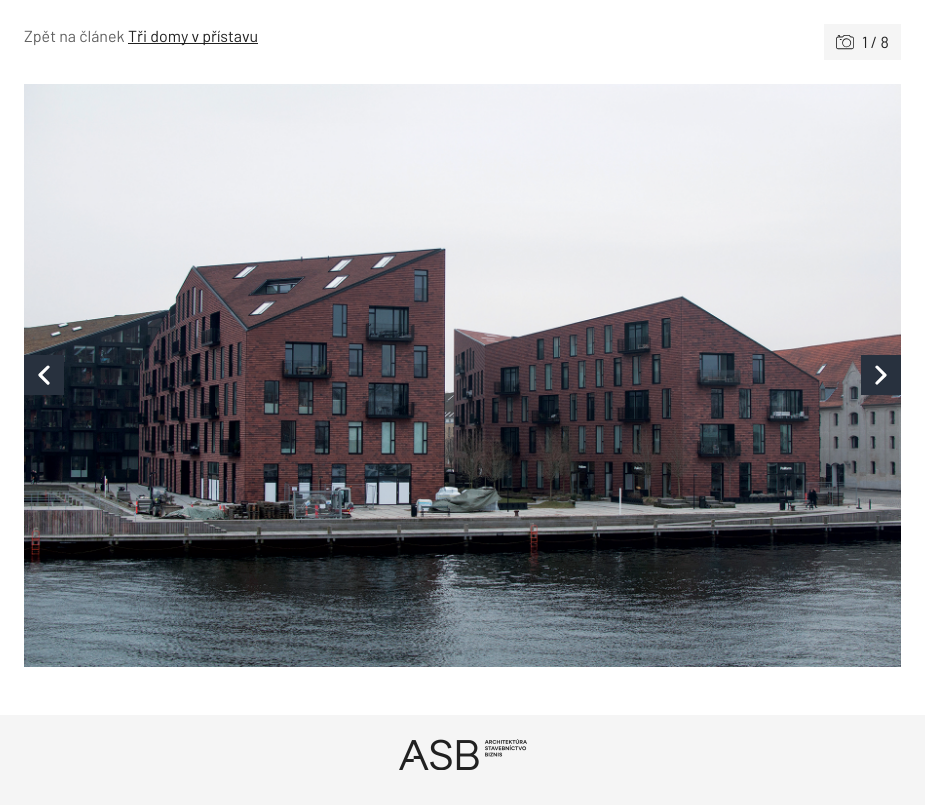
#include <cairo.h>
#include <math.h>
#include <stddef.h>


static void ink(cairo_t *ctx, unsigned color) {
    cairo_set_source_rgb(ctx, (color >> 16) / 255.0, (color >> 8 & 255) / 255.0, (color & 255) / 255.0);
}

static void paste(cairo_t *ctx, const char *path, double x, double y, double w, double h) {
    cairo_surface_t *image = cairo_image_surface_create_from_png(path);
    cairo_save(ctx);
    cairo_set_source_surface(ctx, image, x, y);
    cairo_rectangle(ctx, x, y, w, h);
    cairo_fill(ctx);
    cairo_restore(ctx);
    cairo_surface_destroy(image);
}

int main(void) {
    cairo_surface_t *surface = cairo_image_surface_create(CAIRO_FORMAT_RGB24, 925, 805);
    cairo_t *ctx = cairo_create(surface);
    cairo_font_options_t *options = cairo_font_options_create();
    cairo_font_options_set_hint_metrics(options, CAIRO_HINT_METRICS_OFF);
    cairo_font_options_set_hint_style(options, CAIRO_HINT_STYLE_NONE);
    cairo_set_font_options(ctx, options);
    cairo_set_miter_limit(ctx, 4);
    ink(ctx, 0xFFFFFF);
    cairo_paint(ctx);
    cairo_select_font_face(ctx, "Barlow", CAIRO_FONT_SLANT_NORMAL, CAIRO_FONT_WEIGHT_NORMAL);
    cairo_set_font_size(ctx, 16);
    ink(ctx, 0x616161);
    cairo_move_to(ctx, 24, 42);
    cairo_show_text(ctx, "Zpět na článek");
    ink(ctx, 0x212121);
    cairo_rectangle(ctx, 128, 43, 130, 1);
    cairo_fill(ctx);
    cairo_move_to(ctx, 128, 42);
    cairo_show_text(ctx, "Tři domy v přístavu");
    ink(ctx, 0xF5F5F5);
    cairo_rectangle(ctx, 824, 24, 77, 36);
    cairo_fill(ctx);
    paste(ctx, "media/1.png", 836, 35, 18, 15);
    ink(ctx, 0x212121);
    cairo_move_to(ctx, 862, 48);
    cairo_show_text(ctx, "1 / 8");
    paste(ctx, "media/2.png", 24, 84, 877, 583);
    ink(ctx, 0x28313E);
    cairo_rectangle(ctx, 24, 355, 40, 40);
    cairo_fill(ctx);
    paste(ctx, "media/3.png", 38, 365, 12, 20);
    cairo_rectangle(ctx, 861, 355, 40, 40);
    cairo_fill(ctx);
    paste(ctx, "media/4.png", 875, 365, 12, 20);
    ink(ctx, 0xF5F5F5);
    cairo_rectangle(ctx, 0, 715, 925, 90);
    cairo_fill(ctx);
    paste(ctx, "media/5.png", 399, 739, 128, 31);
    cairo_surface_write_to_png(surface, "image.png");
    cairo_font_options_destroy(options);
    cairo_destroy(ctx);
    cairo_surface_destroy(surface);
    return 0;
}
